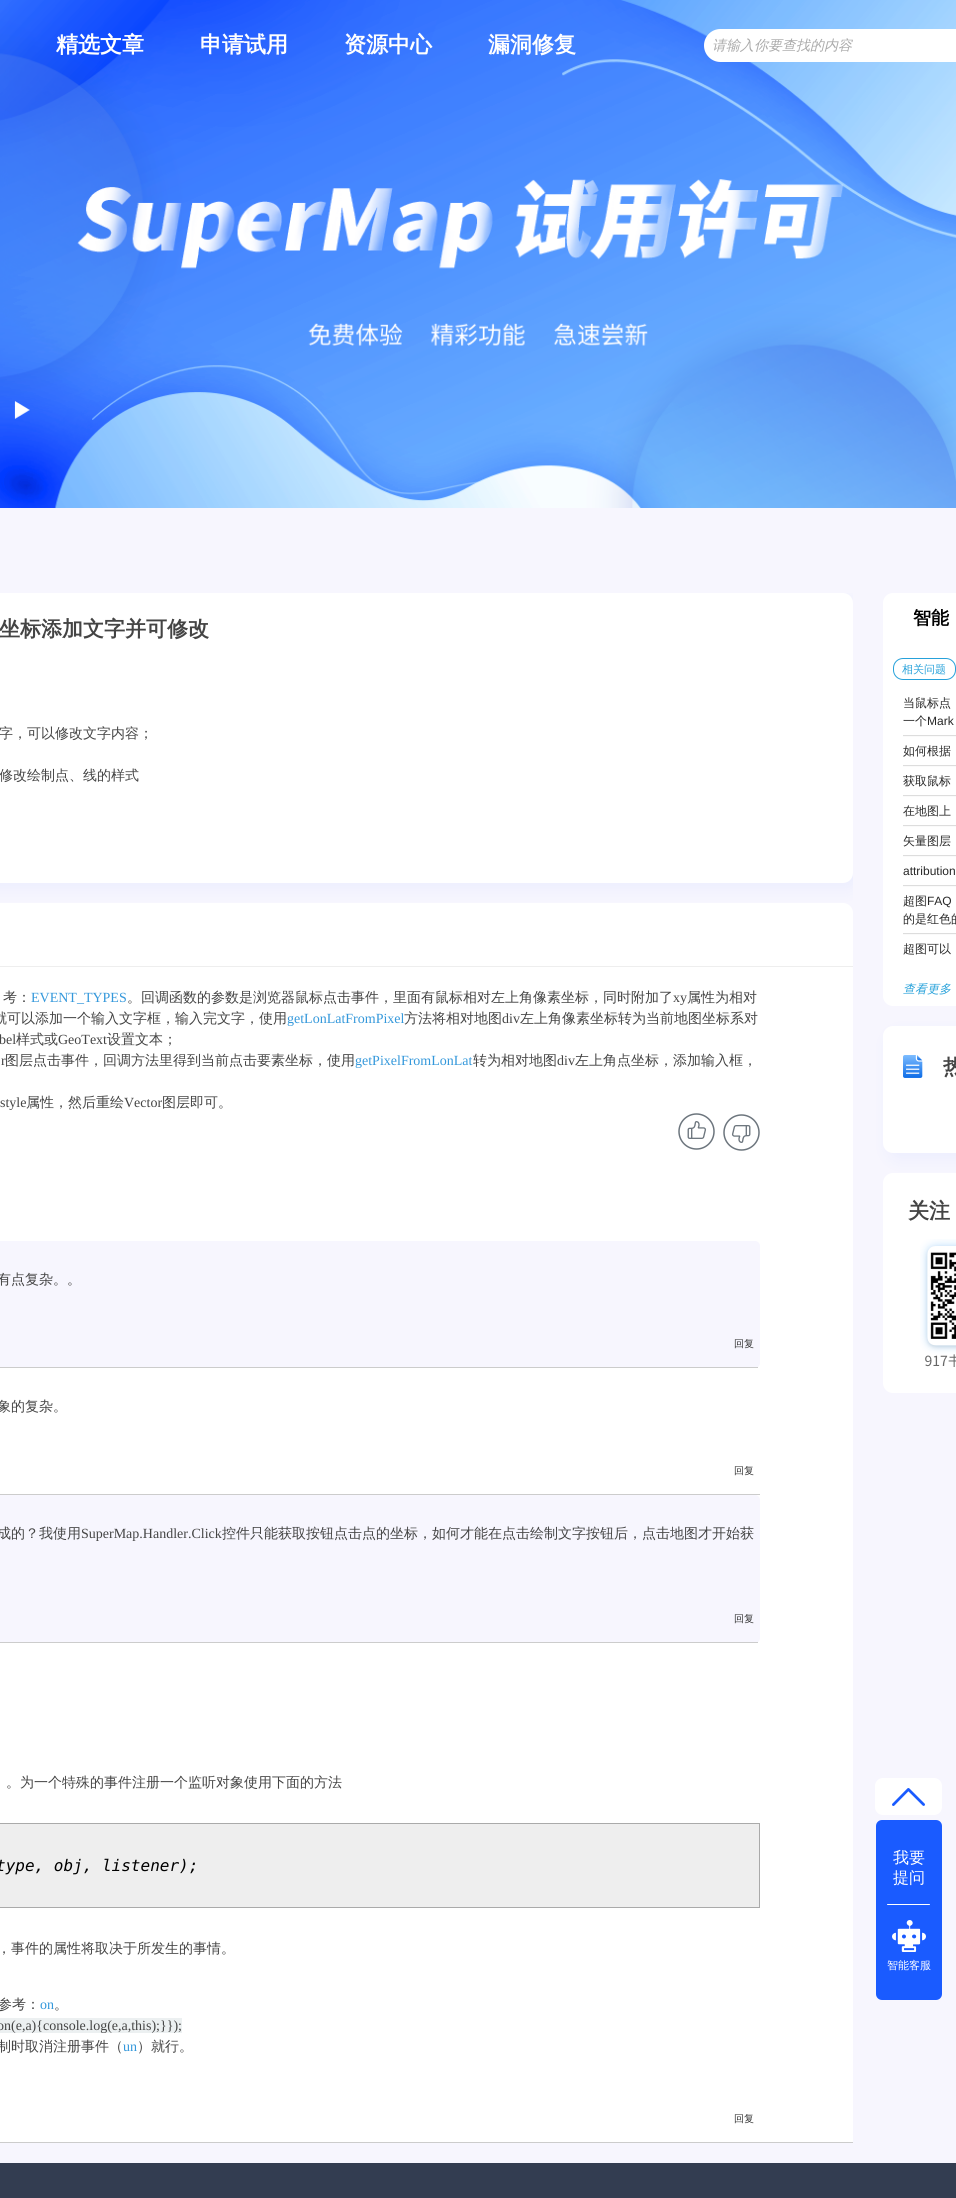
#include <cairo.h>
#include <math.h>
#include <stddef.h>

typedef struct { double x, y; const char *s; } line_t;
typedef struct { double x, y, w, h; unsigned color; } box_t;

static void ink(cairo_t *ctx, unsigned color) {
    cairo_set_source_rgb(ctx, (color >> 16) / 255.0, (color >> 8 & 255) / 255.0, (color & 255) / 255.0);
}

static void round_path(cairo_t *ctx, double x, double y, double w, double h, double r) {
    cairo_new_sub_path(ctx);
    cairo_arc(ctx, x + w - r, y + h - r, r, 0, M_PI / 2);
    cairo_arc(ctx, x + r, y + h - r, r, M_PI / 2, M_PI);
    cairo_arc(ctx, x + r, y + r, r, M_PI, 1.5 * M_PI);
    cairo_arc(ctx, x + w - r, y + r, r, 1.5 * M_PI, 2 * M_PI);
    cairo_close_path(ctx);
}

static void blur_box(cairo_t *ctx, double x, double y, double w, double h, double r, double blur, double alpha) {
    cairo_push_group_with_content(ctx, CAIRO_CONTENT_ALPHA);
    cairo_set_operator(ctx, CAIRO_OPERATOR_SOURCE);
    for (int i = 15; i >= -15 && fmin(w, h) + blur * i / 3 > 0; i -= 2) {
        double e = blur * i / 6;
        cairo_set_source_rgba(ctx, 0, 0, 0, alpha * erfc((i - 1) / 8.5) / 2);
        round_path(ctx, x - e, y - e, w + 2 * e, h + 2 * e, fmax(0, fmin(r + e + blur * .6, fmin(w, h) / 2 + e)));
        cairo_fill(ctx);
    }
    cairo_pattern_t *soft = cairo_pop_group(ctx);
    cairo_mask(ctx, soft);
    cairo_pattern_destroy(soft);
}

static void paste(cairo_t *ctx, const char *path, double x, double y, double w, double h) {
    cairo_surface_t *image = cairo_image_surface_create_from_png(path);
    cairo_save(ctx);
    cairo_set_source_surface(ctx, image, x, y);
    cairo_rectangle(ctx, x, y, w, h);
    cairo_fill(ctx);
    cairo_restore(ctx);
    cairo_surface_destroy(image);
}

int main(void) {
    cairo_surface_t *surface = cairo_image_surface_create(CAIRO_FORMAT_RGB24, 956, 2198);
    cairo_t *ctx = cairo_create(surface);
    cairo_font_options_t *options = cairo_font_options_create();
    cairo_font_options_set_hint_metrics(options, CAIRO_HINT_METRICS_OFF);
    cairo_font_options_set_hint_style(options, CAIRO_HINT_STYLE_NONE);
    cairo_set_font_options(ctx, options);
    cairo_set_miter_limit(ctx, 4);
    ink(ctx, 0xF7F6FE);
    cairo_paint(ctx);
    paste(ctx, "media/1.png", 0, 0, 956, 508);
    cairo_select_font_face(ctx, "WenQuanYi Zen Hei", CAIRO_FONT_SLANT_NORMAL, CAIRO_FONT_WEIGHT_BOLD);
    cairo_set_font_size(ctx, 22);
    ink(ctx, 0xFFFFFF);
    {
        static const line_t items[] = {
            {56, 52, "精选文章"},
            {200, 52, "申请试用"},
            {344, 52, "资源中心"},
            {488, 52, "漏洞修复"},
        };
        for (size_t i = 0; i < sizeof items / sizeof *items; i++) {
            cairo_move_to(ctx, items[i].x, items[i].y);
            cairo_show_text(ctx, items[i].s);
        }
    }
    round_path(ctx, 704, 29, 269, 33, 16.5);
    cairo_fill(ctx);
    cairo_select_font_face(ctx, "WenQuanYi Zen Hei Medium", CAIRO_FONT_SLANT_ITALIC, CAIRO_FONT_WEIGHT_NORMAL);
    cairo_set_font_size(ctx, 14);
    ink(ctx, 0xAAAAAA);
    cairo_move_to(ctx, 712, 50);
    cairo_show_text(ctx, "请输入你要查找的内容");
    ink(ctx, 0xFFFFFF);
    round_path(ctx, -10, 903, 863, 1240, 10);
    cairo_fill(ctx);
    cairo_save(ctx);
    cairo_rectangle(ctx, 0, 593, 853, 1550);
    cairo_clip(ctx);
    ink(ctx, 0x1E59FF);
    blur_box(ctx, -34, 600, 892, 290, 10, 8, 0.05);
    cairo_restore(ctx);
    round_path(ctx, -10, 593, 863, 290, 10);
    cairo_fill(ctx);
    cairo_select_font_face(ctx, "WenQuanYi Zen Hei", CAIRO_FONT_SLANT_NORMAL, CAIRO_FONT_WEIGHT_BOLD);
    cairo_set_font_size(ctx, 21);
    ink(ctx, 0x444444);
    cairo_move_to(ctx, -1, 636);
    cairo_show_text(ctx, "坐标添加文字并可修改");
    cairo_select_font_face(ctx, "WenQuanYi Zen Hei Medium", CAIRO_FONT_SLANT_NORMAL, CAIRO_FONT_WEIGHT_NORMAL);
    cairo_set_font_size(ctx, 14);
    cairo_move_to(ctx, -1, 738);
    cairo_show_text(ctx, "字，可以修改文字内容；");
    cairo_move_to(ctx, -1, 780);
    cairo_show_text(ctx, "修改绘制点、线的样式");
    {
        static const box_t items[] = {
            {848, 2135, 5, 7, 0xFFFFFF},
            {0, 966, 853, 1, 0xEEEEEE},
            {0, 2142, 853, 1, 0xCCCCCC},
        };
        for (size_t i = 0; i < sizeof items / sizeof *items; i++) {
            ink(ctx, items[i].color);
            cairo_rectangle(ctx, items[i].x, items[i].y, items[i].w, items[i].h);
            cairo_fill(ctx);
        }
    }
    ink(ctx, 0x444444);
    cairo_move_to(ctx, 3, 1002);
    cairo_show_text(ctx, "考：");
    cairo_select_font_face(ctx, "Liberation Serif", CAIRO_FONT_SLANT_NORMAL, CAIRO_FONT_WEIGHT_NORMAL);
    ink(ctx, 0x3498DB);
    cairo_move_to(ctx, 31, 1002);
    cairo_show_text(ctx, "EVENT_TYPES");
    cairo_select_font_face(ctx, "WenQuanYi Zen Hei Medium", CAIRO_FONT_SLANT_NORMAL, CAIRO_FONT_WEIGHT_NORMAL);
    ink(ctx, 0x444444);
    cairo_move_to(ctx, 127, 1002);
    cairo_show_text(ctx, "。回调函数的参数是浏览器鼠标点击事件，里面有鼠标相对左上角像素坐标，同时附加了");
    cairo_select_font_face(ctx, "Liberation Serif", CAIRO_FONT_SLANT_NORMAL, CAIRO_FONT_WEIGHT_NORMAL);
    cairo_move_to(ctx, 673, 1002);
    cairo_show_text(ctx, "xy");
    cairo_select_font_face(ctx, "WenQuanYi Zen Hei Medium", CAIRO_FONT_SLANT_NORMAL, CAIRO_FONT_WEIGHT_NORMAL);
    cairo_move_to(ctx, 687, 1002);
    cairo_show_text(ctx, "属性为相对");
    cairo_move_to(ctx, -7, 1023);
    cairo_show_text(ctx, "就可以添加一个输入文字框，输入完文字，使用");
    cairo_select_font_face(ctx, "Liberation Serif", CAIRO_FONT_SLANT_NORMAL, CAIRO_FONT_WEIGHT_NORMAL);
    ink(ctx, 0x3498DB);
    cairo_move_to(ctx, 287, 1023);
    cairo_show_text(ctx, "getLonLatFromPixel");
    cairo_select_font_face(ctx, "WenQuanYi Zen Hei Medium", CAIRO_FONT_SLANT_NORMAL, CAIRO_FONT_WEIGHT_NORMAL);
    ink(ctx, 0x444444);
    cairo_move_to(ctx, 404, 1023);
    cairo_show_text(ctx, "方法将相对地图");
    cairo_select_font_face(ctx, "Liberation Serif", CAIRO_FONT_SLANT_NORMAL, CAIRO_FONT_WEIGHT_NORMAL);
    cairo_move_to(ctx, 502, 1023);
    cairo_show_text(ctx, "div");
    cairo_select_font_face(ctx, "WenQuanYi Zen Hei Medium", CAIRO_FONT_SLANT_NORMAL, CAIRO_FONT_WEIGHT_NORMAL);
    cairo_move_to(ctx, 520, 1023);
    cairo_show_text(ctx, "左上角像素坐标转为当前地图坐标系对");
    cairo_select_font_face(ctx, "Liberation Serif", CAIRO_FONT_SLANT_NORMAL, CAIRO_FONT_WEIGHT_NORMAL);
    cairo_move_to(ctx, -1, 1044);
    cairo_show_text(ctx, "bel");
    cairo_select_font_face(ctx, "WenQuanYi Zen Hei Medium", CAIRO_FONT_SLANT_NORMAL, CAIRO_FONT_WEIGHT_NORMAL);
    cairo_move_to(ctx, 16, 1044);
    cairo_show_text(ctx, "样式或");
    cairo_select_font_face(ctx, "Liberation Serif", CAIRO_FONT_SLANT_NORMAL, CAIRO_FONT_WEIGHT_NORMAL);
    cairo_move_to(ctx, 58, 1044);
    cairo_show_text(ctx, "GeoText");
    cairo_select_font_face(ctx, "WenQuanYi Zen Hei Medium", CAIRO_FONT_SLANT_NORMAL, CAIRO_FONT_WEIGHT_NORMAL);
    cairo_move_to(ctx, 107, 1044);
    cairo_show_text(ctx, "设置文本；");
    cairo_select_font_face(ctx, "Liberation Serif", CAIRO_FONT_SLANT_NORMAL, CAIRO_FONT_WEIGHT_NORMAL);
    cairo_move_to(ctx, 1, 1065);
    cairo_show_text(ctx, "r");
    cairo_select_font_face(ctx, "WenQuanYi Zen Hei Medium", CAIRO_FONT_SLANT_NORMAL, CAIRO_FONT_WEIGHT_NORMAL);
    cairo_move_to(ctx, 5, 1065);
    cairo_show_text(ctx, "图层点击事件，回调方法里得到当前点击要素坐标，使用");
    cairo_select_font_face(ctx, "Liberation Serif", CAIRO_FONT_SLANT_NORMAL, CAIRO_FONT_WEIGHT_NORMAL);
    ink(ctx, 0x3498DB);
    cairo_move_to(ctx, 355, 1065);
    cairo_show_text(ctx, "getPixelFromLonLat");
    cairo_select_font_face(ctx, "WenQuanYi Zen Hei Medium", CAIRO_FONT_SLANT_NORMAL, CAIRO_FONT_WEIGHT_NORMAL);
    ink(ctx, 0x444444);
    cairo_move_to(ctx, 473, 1065);
    cairo_show_text(ctx, "转为相对地图");
    cairo_select_font_face(ctx, "Liberation Serif", CAIRO_FONT_SLANT_NORMAL, CAIRO_FONT_WEIGHT_NORMAL);
    cairo_move_to(ctx, 557, 1065);
    cairo_show_text(ctx, "div");
    cairo_select_font_face(ctx, "WenQuanYi Zen Hei Medium", CAIRO_FONT_SLANT_NORMAL, CAIRO_FONT_WEIGHT_NORMAL);
    cairo_move_to(ctx, 575, 1065);
    cairo_show_text(ctx, "左上角点坐标，添加输入框，");
    cairo_select_font_face(ctx, "Liberation Serif", CAIRO_FONT_SLANT_NORMAL, CAIRO_FONT_WEIGHT_NORMAL);
    cairo_move_to(ctx, 0, 1107);
    cairo_show_text(ctx, "style");
    cairo_select_font_face(ctx, "WenQuanYi Zen Hei Medium", CAIRO_FONT_SLANT_NORMAL, CAIRO_FONT_WEIGHT_NORMAL);
    cairo_move_to(ctx, 26, 1107);
    cairo_show_text(ctx, "属性，然后重绘");
    cairo_select_font_face(ctx, "Liberation Serif", CAIRO_FONT_SLANT_NORMAL, CAIRO_FONT_WEIGHT_NORMAL);
    cairo_move_to(ctx, 124, 1107);
    cairo_show_text(ctx, "Vector");
    cairo_select_font_face(ctx, "WenQuanYi Zen Hei Medium", CAIRO_FONT_SLANT_NORMAL, CAIRO_FONT_WEIGHT_NORMAL);
    cairo_move_to(ctx, 162, 1107);
    cairo_show_text(ctx, "图层即可。");
    paste(ctx, "media/2.png", 678, 1113, 37, 37);
    paste(ctx, "media/3.png", 723, 1114, 37, 37);
    ink(ctx, 0xF7F6FE);
    round_path(ctx, -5, 1241, 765, 127, 5);
    cairo_fill(ctx);
    ink(ctx, 0xCCCCCC);
    cairo_rectangle(ctx, 0, 1367, 758, 1);
    cairo_fill(ctx);
    ink(ctx, 0x444444);
    cairo_move_to(ctx, -3, 1284);
    cairo_show_text(ctx, "有点复杂。。");
    cairo_set_font_size(ctx, 10);
    ink(ctx, 0x333333);
    cairo_move_to(ctx, 734, 1347);
    cairo_show_text(ctx, "回复");
    ink(ctx, 0xCCCCCC);
    cairo_rectangle(ctx, 0, 1494, 760, 1);
    cairo_fill(ctx);
    cairo_set_font_size(ctx, 14);
    ink(ctx, 0x444444);
    cairo_move_to(ctx, -3, 1411);
    cairo_show_text(ctx, "象的复杂。");
    cairo_set_font_size(ctx, 10);
    ink(ctx, 0x333333);
    cairo_move_to(ctx, 734, 1474);
    cairo_show_text(ctx, "回复");
    ink(ctx, 0xF7F6FE);
    round_path(ctx, -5, 1495, 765, 148, 5);
    cairo_fill(ctx);
    ink(ctx, 0xCCCCCC);
    cairo_rectangle(ctx, 0, 1642, 758, 1);
    cairo_fill(ctx);
    cairo_set_font_size(ctx, 14);
    ink(ctx, 0x444444);
    cairo_move_to(ctx, -3, 1538);
    cairo_show_text(ctx, "成的？我使用");
    cairo_select_font_face(ctx, "Liberation Serif", CAIRO_FONT_SLANT_NORMAL, CAIRO_FONT_WEIGHT_NORMAL);
    cairo_move_to(ctx, 81, 1538);
    cairo_show_text(ctx, "SuperMap.Handler.Click");
    cairo_select_font_face(ctx, "WenQuanYi Zen Hei Medium", CAIRO_FONT_SLANT_NORMAL, CAIRO_FONT_WEIGHT_NORMAL);
    cairo_move_to(ctx, 222, 1538);
    cairo_show_text(ctx, "控件只能获取按钮点击点的坐标，如何才能在点击绘制文字按钮后，点击地图才开始获");
    cairo_set_font_size(ctx, 10);
    ink(ctx, 0x333333);
    cairo_move_to(ctx, 734, 1622);
    cairo_show_text(ctx, "回复");
    cairo_set_font_size(ctx, 14);
    ink(ctx, 0x444444);
    cairo_move_to(ctx, 6, 1787);
    cairo_show_text(ctx, "。为一个特殊的事件注册一个监听对象使用下面的方法");
    ink(ctx, 0xEEEEEE);
    cairo_rectangle(ctx, -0.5, 1823.5, 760, 84);
    cairo_fill_preserve(ctx);
    ink(ctx, 0xAAAAAA);
    cairo_set_line_width(ctx, 1);
    cairo_stroke(ctx);
    cairo_select_font_face(ctx, "DejaVu Sans Mono", CAIRO_FONT_SLANT_ITALIC, CAIRO_FONT_WEIGHT_NORMAL);
    cairo_set_font_size(ctx, 16);
    ink(ctx, 0x000000);
    cairo_move_to(ctx, -4, 1871);
    cairo_show_text(ctx, "type, obj, listener);");
    cairo_select_font_face(ctx, "WenQuanYi Zen Hei Medium", CAIRO_FONT_SLANT_NORMAL, CAIRO_FONT_WEIGHT_NORMAL);
    cairo_set_font_size(ctx, 14);
    ink(ctx, 0x444444);
    cairo_move_to(ctx, -3, 1953);
    cairo_show_text(ctx, "，事件的属性将取决于所发生的事情。");
    cairo_move_to(ctx, -2, 2009);
    cairo_show_text(ctx, "参考：");
    cairo_select_font_face(ctx, "Liberation Serif", CAIRO_FONT_SLANT_NORMAL, CAIRO_FONT_WEIGHT_NORMAL);
    ink(ctx, 0x3498DB);
    cairo_move_to(ctx, 40, 2009);
    cairo_show_text(ctx, "on");
    cairo_select_font_face(ctx, "WenQuanYi Zen Hei Medium", CAIRO_FONT_SLANT_NORMAL, CAIRO_FONT_WEIGHT_NORMAL);
    ink(ctx, 0x444444);
    cairo_move_to(ctx, 54, 2009);
    cairo_show_text(ctx, "。");
    ink(ctx, 0xECF0F1);
    cairo_rectangle(ctx, 0, 2018, 182, 15);
    cairo_fill(ctx);
    cairo_select_font_face(ctx, "Liberation Serif", CAIRO_FONT_SLANT_NORMAL, CAIRO_FONT_WEIGHT_NORMAL);
    ink(ctx, 0x444444);
    cairo_move_to(ctx, -3, 2030);
    cairo_show_text(ctx, "on(e,a){console.log(e,a,this);}});");
    cairo_select_font_face(ctx, "WenQuanYi Zen Hei Medium", CAIRO_FONT_SLANT_NORMAL, CAIRO_FONT_WEIGHT_NORMAL);
    cairo_move_to(ctx, -3, 2051);
    cairo_show_text(ctx, "制时取消注册事件（");
    cairo_select_font_face(ctx, "Liberation Serif", CAIRO_FONT_SLANT_NORMAL, CAIRO_FONT_WEIGHT_NORMAL);
    ink(ctx, 0x3498DB);
    cairo_move_to(ctx, 123, 2051);
    cairo_show_text(ctx, "un");
    cairo_select_font_face(ctx, "WenQuanYi Zen Hei Medium", CAIRO_FONT_SLANT_NORMAL, CAIRO_FONT_WEIGHT_NORMAL);
    ink(ctx, 0x444444);
    cairo_move_to(ctx, 137, 2051);
    cairo_show_text(ctx, "）就行。");
    cairo_set_font_size(ctx, 10);
    ink(ctx, 0x333333);
    cairo_move_to(ctx, 734, 2122);
    cairo_show_text(ctx, "回复");
    ink(ctx, 0xFFFFFF);
    round_path(ctx, 883, 593, 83, 413, 10);
    cairo_fill(ctx);
    cairo_select_font_face(ctx, "WenQuanYi Zen Hei", CAIRO_FONT_SLANT_NORMAL, CAIRO_FONT_WEIGHT_BOLD);
    cairo_set_font_size(ctx, 18);
    ink(ctx, 0x000000);
    cairo_move_to(ctx, 913, 624);
    cairo_show_text(ctx, "智能");
    round_path(ctx, 893.5, 658.5, 62, 21, 9.5);
    ink(ctx, 0x26A1DA);
    cairo_stroke(ctx);
    cairo_select_font_face(ctx, "WenQuanYi Zen Hei Medium", CAIRO_FONT_SLANT_NORMAL, CAIRO_FONT_WEIGHT_NORMAL);
    cairo_set_font_size(ctx, 11);
    cairo_move_to(ctx, 902, 673);
    cairo_show_text(ctx, "相关问题");
    ink(ctx, 0xDDDDDD);
    cairo_rectangle(ctx, 903, 735, 53, 1);
    cairo_fill(ctx);
    cairo_set_font_size(ctx, 12);
    ink(ctx, 0x282828);
    cairo_move_to(ctx, 903, 707);
    cairo_show_text(ctx, "当鼠标点");
    cairo_move_to(ctx, 903, 725);
    cairo_show_text(ctx, "一个");
    cairo_select_font_face(ctx, "Liberation Sans", CAIRO_FONT_SLANT_NORMAL, CAIRO_FONT_WEIGHT_NORMAL);
    cairo_move_to(ctx, 927, 725);
    cairo_show_text(ctx, "Mark");
    ink(ctx, 0xFAFAFA);
    cairo_rectangle(ctx, 903, 736, 53, 1);
    cairo_fill(ctx);
    ink(ctx, 0xDDDDDD);
    cairo_rectangle(ctx, 903, 765, 53, 1);
    cairo_fill(ctx);
    cairo_select_font_face(ctx, "WenQuanYi Zen Hei Medium", CAIRO_FONT_SLANT_NORMAL, CAIRO_FONT_WEIGHT_NORMAL);
    ink(ctx, 0x282828);
    cairo_move_to(ctx, 903, 755);
    cairo_show_text(ctx, "如何根据");
    ink(ctx, 0xFAFAFA);
    cairo_rectangle(ctx, 903, 766, 53, 1);
    cairo_fill(ctx);
    ink(ctx, 0xDDDDDD);
    cairo_rectangle(ctx, 903, 795, 53, 1);
    cairo_fill(ctx);
    ink(ctx, 0x282828);
    cairo_move_to(ctx, 903, 785);
    cairo_show_text(ctx, "获取鼠标");
    ink(ctx, 0xFAFAFA);
    cairo_rectangle(ctx, 903, 796, 53, 1);
    cairo_fill(ctx);
    ink(ctx, 0xDDDDDD);
    cairo_rectangle(ctx, 903, 825, 53, 1);
    cairo_fill(ctx);
    ink(ctx, 0x282828);
    cairo_move_to(ctx, 903, 815);
    cairo_show_text(ctx, "在地图上");
    ink(ctx, 0xFAFAFA);
    cairo_rectangle(ctx, 903, 826, 53, 1);
    cairo_fill(ctx);
    ink(ctx, 0xDDDDDD);
    cairo_rectangle(ctx, 903, 855, 53, 1);
    cairo_fill(ctx);
    ink(ctx, 0x282828);
    cairo_move_to(ctx, 903, 845);
    cairo_show_text(ctx, "矢量图层");
    ink(ctx, 0xFAFAFA);
    cairo_rectangle(ctx, 903, 856, 53, 1);
    cairo_fill(ctx);
    ink(ctx, 0xDDDDDD);
    cairo_rectangle(ctx, 903, 885, 53, 1);
    cairo_fill(ctx);
    cairo_select_font_face(ctx, "Liberation Sans", CAIRO_FONT_SLANT_NORMAL, CAIRO_FONT_WEIGHT_NORMAL);
    ink(ctx, 0x282828);
    cairo_move_to(ctx, 903, 875);
    cairo_show_text(ctx, "attribution");
    ink(ctx, 0xFAFAFA);
    cairo_rectangle(ctx, 903, 886, 53, 1);
    cairo_fill(ctx);
    ink(ctx, 0xDDDDDD);
    cairo_rectangle(ctx, 903, 933, 53, 1);
    cairo_fill(ctx);
    cairo_select_font_face(ctx, "WenQuanYi Zen Hei Medium", CAIRO_FONT_SLANT_NORMAL, CAIRO_FONT_WEIGHT_NORMAL);
    ink(ctx, 0x282828);
    cairo_move_to(ctx, 903, 905);
    cairo_show_text(ctx, "超图");
    cairo_select_font_face(ctx, "Liberation Sans", CAIRO_FONT_SLANT_NORMAL, CAIRO_FONT_WEIGHT_NORMAL);
    cairo_move_to(ctx, 927, 905);
    cairo_show_text(ctx, "FAQ");
    cairo_select_font_face(ctx, "WenQuanYi Zen Hei Medium", CAIRO_FONT_SLANT_NORMAL, CAIRO_FONT_WEIGHT_NORMAL);
    cairo_move_to(ctx, 903, 923);
    cairo_show_text(ctx, "的是红色的");
    ink(ctx, 0xFAFAFA);
    cairo_rectangle(ctx, 903, 934, 53, 1);
    cairo_fill(ctx);
    ink(ctx, 0x282828);
    cairo_move_to(ctx, 903, 953);
    cairo_show_text(ctx, "超图可以");
    cairo_select_font_face(ctx, "WenQuanYi Zen Hei Medium", CAIRO_FONT_SLANT_ITALIC, CAIRO_FONT_WEIGHT_NORMAL);
    ink(ctx, 0x26A1DA);
    cairo_move_to(ctx, 903, 993);
    cairo_show_text(ctx, "查看更多");
    ink(ctx, 0x1E59FF);
    blur_box(ctx, 888, 1033, 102, 127, 10, 8, 0.05);
    ink(ctx, 0xFFFFFF);
    round_path(ctx, 883, 1026, 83, 127, 10);
    cairo_fill(ctx);
    paste(ctx, "media/4.png", 903, 1055, 20, 23);
    cairo_select_font_face(ctx, "WenQuanYi Zen Hei", CAIRO_FONT_SLANT_NORMAL, CAIRO_FONT_WEIGHT_BOLD);
    cairo_set_font_size(ctx, 21);
    ink(ctx, 0x444444);
    cairo_move_to(ctx, 943, 1074);
    cairo_show_text(ctx, "热");
    ink(ctx, 0xFFFFFF);
    round_path(ctx, 883, 1173, 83, 220, 10);
    cairo_fill(ctx);
    ink(ctx, 0x444444);
    cairo_move_to(ctx, 908, 1218);
    cairo_show_text(ctx, "关注");
    paste(ctx, "media/5.png", 920, 1239, 36, 128);
    ink(ctx, 0x333D51);
    cairo_rectangle(ctx, 0, 2163, 956, 35);
    cairo_fill(ctx);
    ink(ctx, 0xFFFFFF);
    round_path(ctx, 875, 1778, 67, 37, 8);
    cairo_fill(ctx);
    paste(ctx, "media/6.png", 892, 1788, 33, 18);
    ink(ctx, 0x1A5BFF);
    round_path(ctx, 876, 1820, 66, 180, 6);
    cairo_fill(ctx);
    cairo_select_font_face(ctx, "WenQuanYi Zen Hei Medium", CAIRO_FONT_SLANT_NORMAL, CAIRO_FONT_WEIGHT_NORMAL);
    cairo_set_font_size(ctx, 16);
    ink(ctx, 0xFFFFFF);
    cairo_move_to(ctx, 893, 1863);
    cairo_show_text(ctx, "我要");
    cairo_move_to(ctx, 893, 1883);
    cairo_show_text(ctx, "提问");
    round_path(ctx, 887, 1904, 43, 1, 0.5);
    cairo_fill(ctx);
    paste(ctx, "media/7.png", 892, 1920, 34, 32);
    cairo_set_font_size(ctx, 11);
    cairo_move_to(ctx, 887, 1969);
    cairo_show_text(ctx, "智能客服");
    cairo_surface_write_to_png(surface, "image.png");
    cairo_font_options_destroy(options);
    cairo_destroy(ctx);
    cairo_surface_destroy(surface);
    return 0;
}
